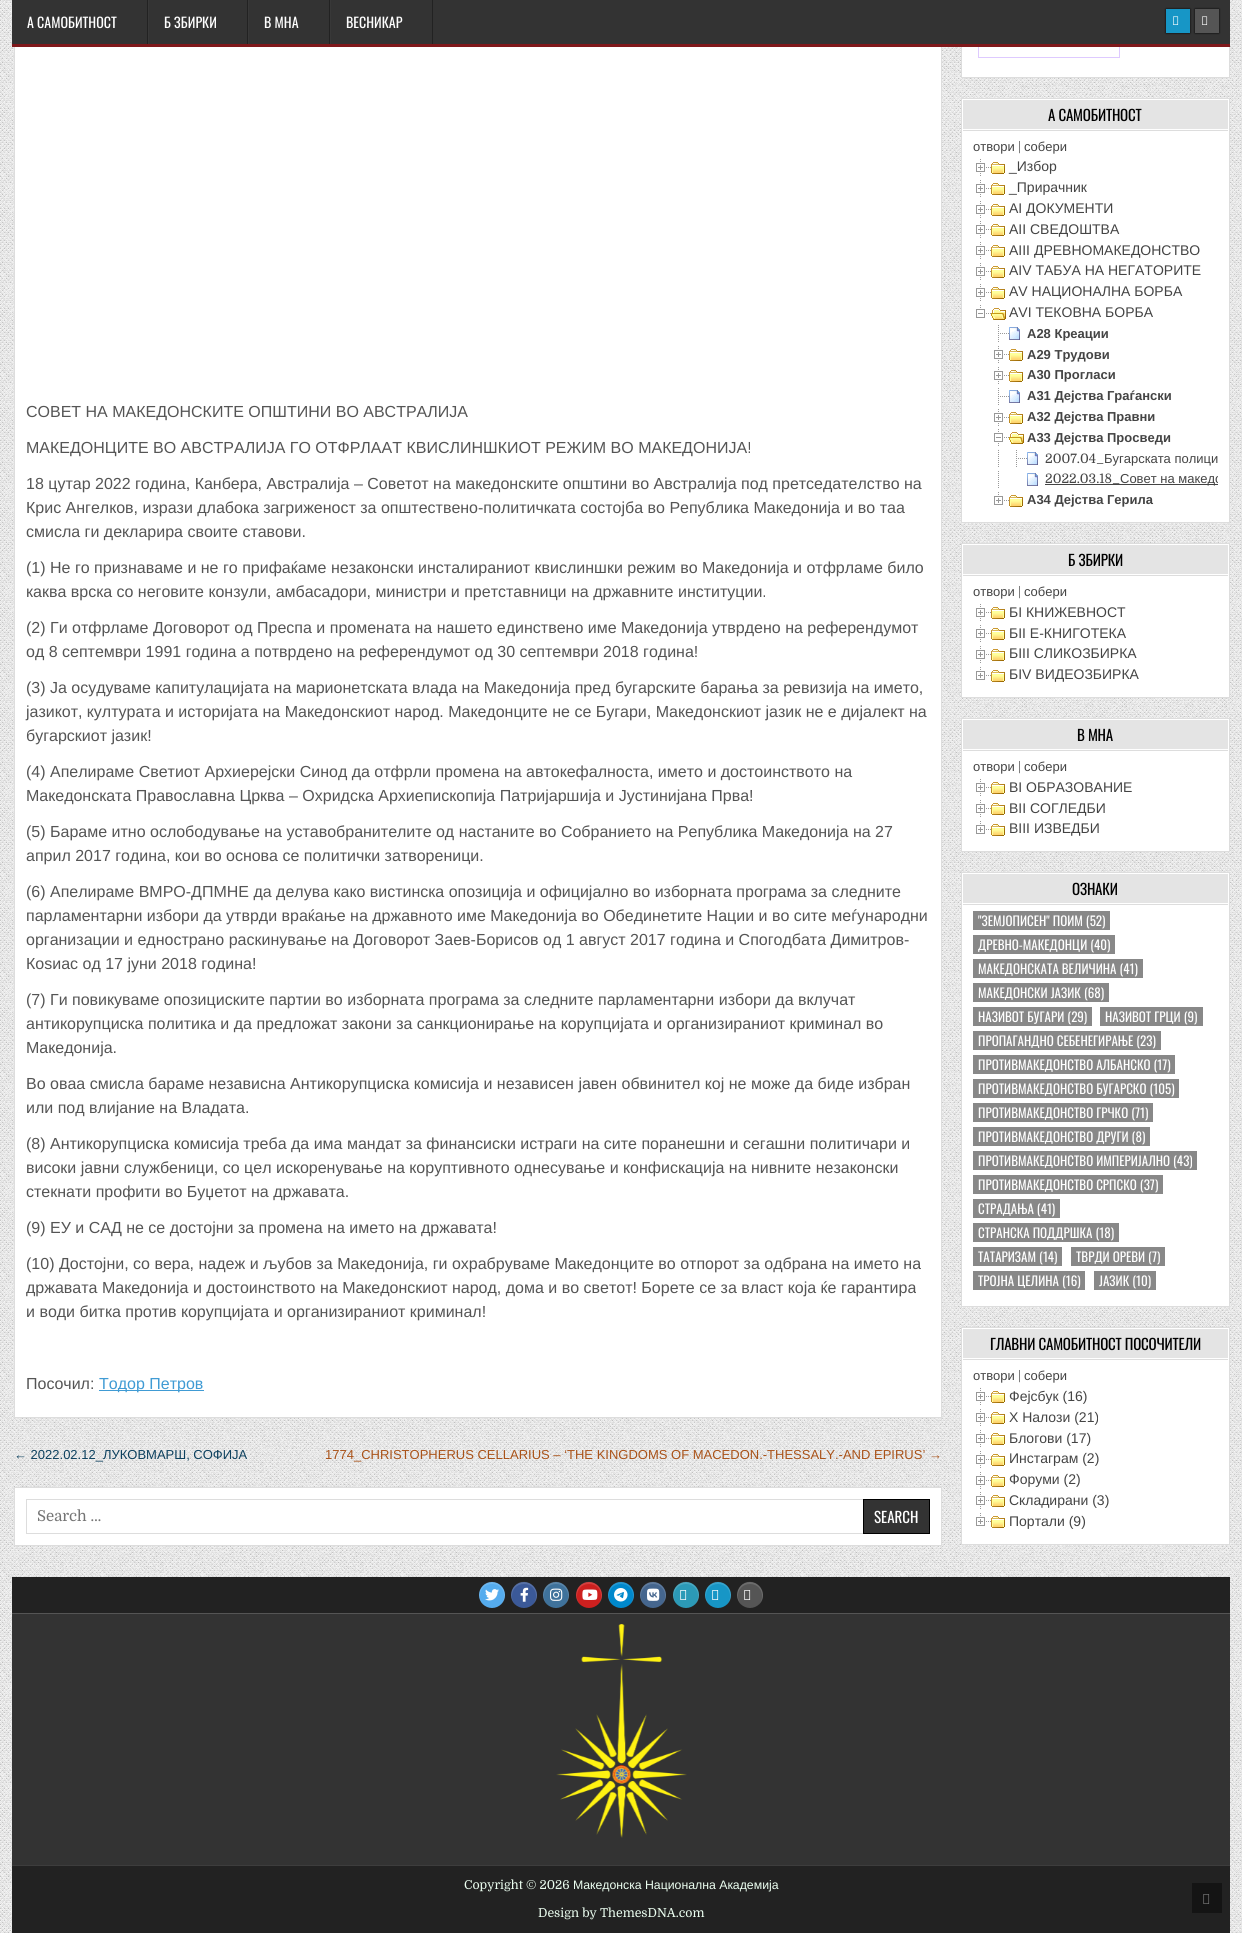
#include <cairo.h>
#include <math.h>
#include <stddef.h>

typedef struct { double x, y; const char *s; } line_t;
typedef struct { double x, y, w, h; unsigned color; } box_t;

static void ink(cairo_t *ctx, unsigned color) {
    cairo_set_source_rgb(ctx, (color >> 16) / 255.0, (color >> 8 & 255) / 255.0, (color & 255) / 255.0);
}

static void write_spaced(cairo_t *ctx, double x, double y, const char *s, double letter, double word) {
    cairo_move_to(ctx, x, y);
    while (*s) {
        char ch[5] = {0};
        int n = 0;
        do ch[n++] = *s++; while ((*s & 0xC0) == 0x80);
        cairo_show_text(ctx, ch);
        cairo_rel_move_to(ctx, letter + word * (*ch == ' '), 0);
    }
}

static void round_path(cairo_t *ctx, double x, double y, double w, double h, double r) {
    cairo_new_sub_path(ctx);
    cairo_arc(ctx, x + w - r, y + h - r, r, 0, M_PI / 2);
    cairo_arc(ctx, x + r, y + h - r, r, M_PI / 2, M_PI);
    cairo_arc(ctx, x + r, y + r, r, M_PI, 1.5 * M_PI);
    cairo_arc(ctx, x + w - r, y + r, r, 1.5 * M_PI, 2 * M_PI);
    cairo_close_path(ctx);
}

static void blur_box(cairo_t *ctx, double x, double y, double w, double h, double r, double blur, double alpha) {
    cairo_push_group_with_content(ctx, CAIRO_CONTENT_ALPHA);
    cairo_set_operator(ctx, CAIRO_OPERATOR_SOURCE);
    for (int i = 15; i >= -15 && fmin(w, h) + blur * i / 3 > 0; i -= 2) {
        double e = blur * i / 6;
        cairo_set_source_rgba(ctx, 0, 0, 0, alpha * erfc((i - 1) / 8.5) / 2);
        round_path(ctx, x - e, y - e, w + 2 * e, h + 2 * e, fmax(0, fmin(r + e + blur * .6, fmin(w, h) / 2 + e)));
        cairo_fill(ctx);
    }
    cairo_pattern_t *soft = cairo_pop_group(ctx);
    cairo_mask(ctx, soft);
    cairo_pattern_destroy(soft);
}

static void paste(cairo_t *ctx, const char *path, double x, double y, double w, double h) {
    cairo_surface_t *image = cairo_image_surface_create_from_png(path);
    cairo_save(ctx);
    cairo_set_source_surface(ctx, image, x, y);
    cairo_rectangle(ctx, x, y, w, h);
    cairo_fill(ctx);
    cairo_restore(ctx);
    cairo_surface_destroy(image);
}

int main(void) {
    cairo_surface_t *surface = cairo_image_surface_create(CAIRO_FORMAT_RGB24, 1242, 1933);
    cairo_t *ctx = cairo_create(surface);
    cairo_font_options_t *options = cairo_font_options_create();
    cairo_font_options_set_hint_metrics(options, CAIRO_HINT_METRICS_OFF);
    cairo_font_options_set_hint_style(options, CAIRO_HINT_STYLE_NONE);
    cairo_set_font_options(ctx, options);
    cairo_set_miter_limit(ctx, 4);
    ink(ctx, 0xFFFFFF);
    cairo_paint(ctx);
    paste(ctx, "media/1.png", 0, 0, 1242, 1933);
    ink(ctx, 0xFFFFFF);
    cairo_rectangle(ctx, 15, 47, 926, 1370);
    cairo_fill(ctx);
    cairo_rectangle(ctx, 14.5, -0.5, 927, 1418);
    ink(ctx, 0xDDDDDD);
    cairo_set_line_width(ctx, 1);
    cairo_stroke(ctx);
    ink(ctx, 0xFFFFFF);
    cairo_rectangle(ctx, 962, 47, 267, 30);
    cairo_fill(ctx);
    cairo_rectangle(ctx, 961.5, -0.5, 268, 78);
    ink(ctx, 0xDDDDDD);
    cairo_stroke(ctx);
    cairo_rectangle(ctx, 978.5, -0.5, 141, 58);
    ink(ctx, 0xDECAFF);
    cairo_stroke(ctx);
    {
        static const box_t items[] = {
            {12, 0, 1218, 44, 0x333333},
            {12, 44, 1218, 3, 0x7F181B},
            {147, 0, 1, 44, 0x222222},
        };
        for (size_t i = 0; i < sizeof items / sizeof *items; i++) {
            ink(ctx, items[i].color);
            cairo_rectangle(ctx, items[i].x, items[i].y, items[i].w, items[i].h);
            cairo_fill(ctx);
        }
    }
    cairo_select_font_face(ctx, "Oswald", CAIRO_FONT_SLANT_NORMAL, CAIRO_FONT_WEIGHT_NORMAL);
    cairo_set_font_size(ctx, 14);
    ink(ctx, 0xFFFFFF);
    cairo_move_to(ctx, 27, 28);
    cairo_show_text(ctx, "А САМОБИТНОСТ");
    ink(ctx, 0x222222);
    cairo_rectangle(ctx, 247, 0, 1, 44);
    cairo_fill(ctx);
    ink(ctx, 0x383838);
    cairo_rectangle(ctx, 148, 0, 1, 44);
    cairo_fill(ctx);
    ink(ctx, 0xFFFFFF);
    cairo_move_to(ctx, 164, 28);
    cairo_show_text(ctx, "Б ЗБИРКИ");
    ink(ctx, 0x222222);
    cairo_rectangle(ctx, 329, 0, 1, 44);
    cairo_fill(ctx);
    ink(ctx, 0x383838);
    cairo_rectangle(ctx, 248, 0, 1, 44);
    cairo_fill(ctx);
    ink(ctx, 0xFFFFFF);
    cairo_move_to(ctx, 264, 28);
    cairo_show_text(ctx, "В МНА");
    ink(ctx, 0x222222);
    cairo_rectangle(ctx, 432, 0, 1, 44);
    cairo_fill(ctx);
    ink(ctx, 0x383838);
    cairo_rectangle(ctx, 330, 0, 1, 44);
    cairo_fill(ctx);
    ink(ctx, 0xFFFFFF);
    cairo_move_to(ctx, 346, 28);
    cairo_show_text(ctx, "ВЕСНИКАР");
    ink(ctx, 0x000000);
    blur_box(ctx, 1166, 9, 24, 24, 0, 1, 1);
    ink(ctx, 0x1796C6);
    cairo_rectangle(ctx, 1166, 9, 24, 24);
    cairo_fill(ctx);
    paste(ctx, "media/2.png", 1173, 16, 6, 9);
    ink(ctx, 0x000000);
    blur_box(ctx, 1195, 9, 24, 24, 0, 1, 1);
    ink(ctx, 0x555555);
    cairo_rectangle(ctx, 1195, 9, 24, 24);
    cairo_fill(ctx);
    paste(ctx, "media/3.png", 1202, 16, 6, 9);
    cairo_select_font_face(ctx, "Liberation Sans", CAIRO_FONT_SLANT_NORMAL, CAIRO_FONT_WEIGHT_NORMAL);
    cairo_set_font_size(ctx, 16);
    {
        static const line_t items[] = {
            {26, 417, "СОВЕТ НА МАКЕДОНСКИТЕ ОПШТИНИ ВО АВСТРАЛИЈА"},
            {26, 453, "МАКЕДОНЦИТЕ ВО АВСТРАЛИЈА ГО ОТФРЛААТ КВИСЛИНШКИОТ РЕЖИМ ВО МАКЕДОНИЈА!"},
            {26, 489, "18 цутар 2022 година, Канбера, Австралија – Советот на македонските општини во Австралија под претседателство на"},
            {26, 513, "Крис Ангелков, изрази длабока загриженост за општествено-политичката состојба во Република Македонија и во таа"},
            {26, 537, "смисла ги декларира своите ставови."},
            {26, 573, "(1) Не го признаваме и не го прифаќаме незаконски инсталираниот квислиншки режим во Македонија и отфрламе било"},
            {26, 597, "каква врска со неговите конзули, амбасадори, министри и претставници на државните институции."},
            {26, 633, "(2) Ги отфрламе Договорот од Преспа и промената на нашето единствено име Македонија утврдено на референдумот"},
            {26, 657, "од 8 септември 1991 година а потврдено на референдумот од 30 септември 2018 година!"},
            {26, 693, "(3) Ја осудуваме капитулацијата на марионетската влада на Македонија пред бугарските барања за ревизија на името,"},
            {26, 717, "јазикот, културата и историјата на Македонскиот народ. Македонците не се Бугари, Македонскиот јазик не е дијалект на"},
            {26, 741, "бугарскиот јазик!"},
            {26, 777, "(4) Апелираме Светиот Архиерејски Синод да отфрли промена на автокефалноста, името и достоинството на"},
            {26, 801, "Македонската Православна Црква – Охридска Архиепископија Патријаршија и Јустинијана Прва!"},
            {26, 837, "(5) Бараме итно ослободување на уставобранителите од настаните во Собранието на Република Македонија на 27"},
            {26, 861, "април 2017 година, кои во основа се политички затвореници."},
            {26, 897, "(6) Апелираме ВМРО-ДПМНЕ да делува како вистинска опозиција и официјално во изборната програма за следните"},
            {26, 921, "парламентарни избори да утврди враќање на државното име Македонија во Обединетите Нации и во сите меѓународни"},
            {26, 945, "организации и еднострано раскинување на Договорот Заев-Борисов од 1 август 2017 година и Спогодбата Димитров-"},
            {26, 969, "Коѕиас од 17 јуни 2018 година!"},
            {26, 1005, "(7) Ги повикуваме опозициските партии во изборната програма за следните парламентарни избори да вклучат"},
            {26, 1029, "антикорупциска политика и да предложат закони за санкционирање на корупцијата и организираниот криминал во"},
            {26, 1053, "Македонија."},
            {26, 1089, "Во оваа смисла бараме независна Антикорупциска комисија и независен јавен обвинител кој не може да биде избран"},
            {26, 1113, "или под влијание на Владата."},
            {26, 1149, "(8) Антикорупциска комисија треба да има мандат за финансиски истраги на сите поранешни и сегашни политичари и"},
            {26, 1173, "високи јавни службеници, со цел искоренување на коруптивното однесување и конфискација на нивните незаконски"},
            {26, 1197, "стекнати профити во Буџетот на државата."},
            {26, 1233, "(9) ЕУ и САД не се достојни за промена на името на државата!"},
            {26, 1269, "(10) Достојни, со вера, надеж и љубов за Македонија, ги охрабруваме Македонците во отпорот за одбрана на името на"},
            {26, 1293, "државата Македонија и достоинството на Македонскиот народ, дома и во светот! Борете се за власт која ќе гарантира"},
            {26, 1317, "и води битка против корупцијата и организираниот криминал!"},
            {26, 1389, "Посочил:"},
        };
        for (size_t i = 0; i < sizeof items / sizeof *items; i++) {
            cairo_move_to(ctx, items[i].x, items[i].y);
            cairo_show_text(ctx, items[i].s);
        }
    }
    ink(ctx, 0x409BD4);
    cairo_rectangle(ctx, 99, 1390, 105, 1);
    cairo_fill(ctx);
    cairo_move_to(ctx, 99, 1389);
    cairo_show_text(ctx, "Тодор Петров");
    cairo_set_font_size(ctx, 13);
    ink(ctx, 0x0C405E);
    cairo_move_to(ctx, 14, 1459);
    cairo_show_text(ctx, "← 2022.02.12_ЛУКОВМАРШ, СОФИЈА");
    ink(ctx, 0xA95218);
    cairo_move_to(ctx, 325, 1459);
    cairo_show_text(ctx, "1774_CHRISTOPHERUS CELLARIUS – ‘THE KINGDOMS OF MACEDON.-THESSALY.-AND EPIRUS’ →");
    ink(ctx, 0xFFFFFF);
    cairo_rectangle(ctx, 14.5, 1487.5, 927, 58);
    cairo_fill_preserve(ctx);
    ink(ctx, 0xDDDDDD);
    cairo_stroke(ctx);
    cairo_rectangle(ctx, 26.5, 1499.5, 903, 34);
    cairo_stroke(ctx);
    cairo_select_font_face(ctx, "Domine", CAIRO_FONT_SLANT_NORMAL, CAIRO_FONT_WEIGHT_NORMAL);
    cairo_set_font_size(ctx, 15);
    ink(ctx, 0x757575);
    cairo_move_to(ctx, 37, 1521);
    cairo_show_text(ctx, "Search …");
    ink(ctx, 0x333333);
    cairo_rectangle(ctx, 863.5, 1499.5, 66, 34);
    cairo_fill_preserve(ctx);
    ink(ctx, 0x000000);
    cairo_stroke(ctx);
    cairo_select_font_face(ctx, "Oswald", CAIRO_FONT_SLANT_NORMAL, CAIRO_FONT_WEIGHT_NORMAL);
    ink(ctx, 0xFFFFFF);
    cairo_move_to(ctx, 874, 1523);
    cairo_show_text(ctx, "SEARCH");
    cairo_rectangle(ctx, 961.5, 98.5, 268, 424);
    cairo_fill_preserve(ctx);
    ink(ctx, 0xDDDDDD);
    cairo_stroke(ctx);
    ink(ctx, 0xE4E4E4);
    cairo_rectangle(ctx, 963, 100, 265, 29);
    cairo_fill(ctx);
    ink(ctx, 0xDDDDDD);
    cairo_rectangle(ctx, 963, 130, 265, 1);
    cairo_fill(ctx);
    ink(ctx, 0x000000);
    write_spaced(ctx, 1048, 121, "А САМОБИТНОСТ", -0.2, 0);
    cairo_select_font_face(ctx, "Liberation Sans", CAIRO_FONT_SLANT_NORMAL, CAIRO_FONT_WEIGHT_NORMAL);
    cairo_set_font_size(ctx, 13);
    ink(ctx, 0x444444);
    cairo_move_to(ctx, 973, 151);
    cairo_show_text(ctx, "отвори");
    cairo_select_font_face(ctx, "Domine", CAIRO_FONT_SLANT_NORMAL, CAIRO_FONT_WEIGHT_NORMAL);
    ink(ctx, 0x555555);
    cairo_move_to(ctx, 1018, 151);
    cairo_show_text(ctx, "|");
    cairo_select_font_face(ctx, "Liberation Sans", CAIRO_FONT_SLANT_NORMAL, CAIRO_FONT_WEIGHT_NORMAL);
    ink(ctx, 0x444444);
    cairo_move_to(ctx, 1024, 151);
    cairo_show_text(ctx, "собери");
    paste(ctx, "media/4.png", 976, 159, 15, 17);
    paste(ctx, "media/5.png", 991, 162, 14, 12);
    cairo_set_font_size(ctx, 14);
    cairo_move_to(ctx, 1009, 171);
    cairo_show_text(ctx, "_Избор");
    paste(ctx, "media/4.png", 976, 180, 15, 17);
    paste(ctx, "media/5.png", 991, 183, 14, 12);
    cairo_move_to(ctx, 1009, 192);
    cairo_show_text(ctx, "_Прирачник");
    paste(ctx, "media/4.png", 976, 201, 15, 17);
    paste(ctx, "media/5.png", 991, 204, 14, 12);
    cairo_move_to(ctx, 1009, 213);
    cairo_show_text(ctx, "АI ДОКУМЕНТИ");
    paste(ctx, "media/4.png", 976, 221, 15, 17);
    paste(ctx, "media/5.png", 991, 224, 14, 12);
    cairo_move_to(ctx, 1009, 234);
    cairo_show_text(ctx, "АII СВЕДОШТВА");
    paste(ctx, "media/4.png", 976, 242, 15, 17);
    paste(ctx, "media/5.png", 991, 245, 14, 12);
    cairo_move_to(ctx, 1009, 255);
    cairo_show_text(ctx, "АIII ДРЕВНОМАКЕДОНСТВО");
    paste(ctx, "media/4.png", 976, 263, 15, 17);
    paste(ctx, "media/5.png", 991, 266, 14, 12);
    cairo_move_to(ctx, 1009, 275);
    cairo_show_text(ctx, "АIV ТАБУА НА НЕГАТОРИТЕ");
    paste(ctx, "media/4.png", 976, 284, 15, 17);
    paste(ctx, "media/5.png", 991, 287, 14, 12);
    cairo_move_to(ctx, 1009, 296);
    cairo_show_text(ctx, "АV НАЦИОНАЛНА БОРБА");
    paste(ctx, "media/6.png", 976, 305, 15, 13);
    paste(ctx, "media/7.png", 991, 308, 15, 12);
    cairo_move_to(ctx, 1009, 317);
    cairo_show_text(ctx, "АVI TEКОВНА БОРБА");
    paste(ctx, "media/8.png", 998, 325, 11, 17);
    paste(ctx, "media/9.png", 1009, 327, 11, 13);
    cairo_select_font_face(ctx, "Liberation Sans", CAIRO_FONT_SLANT_NORMAL, CAIRO_FONT_WEIGHT_BOLD);
    cairo_set_font_size(ctx, 13);
    cairo_move_to(ctx, 1027, 338);
    cairo_show_text(ctx, "А28 Креации");
    paste(ctx, "media/4.png", 994, 346, 15, 17);
    paste(ctx, "media/5.png", 1009, 349, 14, 12);
    cairo_move_to(ctx, 1027, 359);
    cairo_show_text(ctx, "А29 Трудови");
    paste(ctx, "media/4.png", 994, 367, 15, 17);
    paste(ctx, "media/5.png", 1009, 370, 14, 12);
    cairo_move_to(ctx, 1027, 379);
    cairo_show_text(ctx, "А30 Прогласи");
    paste(ctx, "media/8.png", 998, 388, 11, 17);
    paste(ctx, "media/9.png", 1009, 390, 11, 13);
    cairo_move_to(ctx, 1027, 400);
    cairo_show_text(ctx, "А31 Дејства Граѓански");
    paste(ctx, "media/4.png", 994, 409, 15, 17);
    paste(ctx, "media/5.png", 1009, 412, 14, 12);
    cairo_move_to(ctx, 1027, 421);
    cairo_show_text(ctx, "А32 Дејства Правни");
    paste(ctx, "media/10.png", 994, 429, 15, 17);
    paste(ctx, "media/7.png", 1009, 432, 15, 12);
    cairo_move_to(ctx, 1027, 442);
    cairo_show_text(ctx, "А33 Дејства Просведи");
    paste(ctx, "media/11.png", 998, 449, 1, 18);
    paste(ctx, "media/8.png", 1016, 450, 11, 17);
    paste(ctx, "media/9.png", 1027, 452, 11, 13);
    cairo_select_font_face(ctx, "Domine", CAIRO_FONT_SLANT_NORMAL, CAIRO_FONT_WEIGHT_NORMAL);
    cairo_move_to(ctx, 1045, 463);
    cairo_show_text(ctx, "2007.04_");
    cairo_select_font_face(ctx, "Liberation Sans", CAIRO_FONT_SLANT_NORMAL, CAIRO_FONT_WEIGHT_NORMAL);
    cairo_move_to(ctx, 1104, 463);
    cairo_show_text(ctx, "Бугарската полици");
    paste(ctx, "media/12.png", 998, 471, 1, 17);
    paste(ctx, "media/9.png", 1027, 473, 11, 13);
    cairo_select_font_face(ctx, "Domine", CAIRO_FONT_SLANT_NORMAL, CAIRO_FONT_WEIGHT_NORMAL);
    cairo_move_to(ctx, 1045, 483);
    cairo_show_text(ctx, "2022.03.18_");
    cairo_rectangle(ctx, 1045, 484, 173, 1);
    cairo_fill(ctx);
    cairo_save(ctx);
    cairo_rectangle(ctx, 973, 449, 245, 41);
    cairo_clip(ctx);
    cairo_select_font_face(ctx, "Liberation Sans", CAIRO_FONT_SLANT_NORMAL, CAIRO_FONT_WEIGHT_NORMAL);
    cairo_move_to(ctx, 1120, 483);
    cairo_show_text(ctx, "Совет на македо");
    cairo_restore(ctx);
    paste(ctx, "media/13.png", 994, 492, 15, 13);
    paste(ctx, "media/5.png", 1009, 495, 14, 12);
    cairo_select_font_face(ctx, "Liberation Sans", CAIRO_FONT_SLANT_NORMAL, CAIRO_FONT_WEIGHT_BOLD);
    cairo_move_to(ctx, 1027, 504);
    cairo_show_text(ctx, "А34 Дејства Герила");
    ink(ctx, 0xFFFFFF);
    cairo_rectangle(ctx, 961.5, 543.5, 268, 154);
    cairo_fill_preserve(ctx);
    ink(ctx, 0xDDDDDD);
    cairo_stroke(ctx);
    ink(ctx, 0xE4E4E4);
    cairo_rectangle(ctx, 963, 545, 265, 29);
    cairo_fill(ctx);
    ink(ctx, 0xDDDDDD);
    cairo_rectangle(ctx, 963, 575, 265, 1);
    cairo_fill(ctx);
    cairo_select_font_face(ctx, "Oswald", CAIRO_FONT_SLANT_NORMAL, CAIRO_FONT_WEIGHT_NORMAL);
    cairo_set_font_size(ctx, 15);
    ink(ctx, 0x000000);
    write_spaced(ctx, 1068, 566, "Б ЗБИРКИ", -0.2, 0);
    cairo_select_font_face(ctx, "Liberation Sans", CAIRO_FONT_SLANT_NORMAL, CAIRO_FONT_WEIGHT_NORMAL);
    cairo_set_font_size(ctx, 13);
    ink(ctx, 0x444444);
    cairo_move_to(ctx, 973, 596);
    cairo_show_text(ctx, "отвори");
    cairo_select_font_face(ctx, "Domine", CAIRO_FONT_SLANT_NORMAL, CAIRO_FONT_WEIGHT_NORMAL);
    ink(ctx, 0x555555);
    cairo_move_to(ctx, 1018, 596);
    cairo_show_text(ctx, "|");
    cairo_select_font_face(ctx, "Liberation Sans", CAIRO_FONT_SLANT_NORMAL, CAIRO_FONT_WEIGHT_NORMAL);
    ink(ctx, 0x444444);
    cairo_move_to(ctx, 1024, 596);
    cairo_show_text(ctx, "собери");
    paste(ctx, "media/4.png", 976, 604, 15, 17);
    paste(ctx, "media/5.png", 991, 607, 14, 12);
    cairo_set_font_size(ctx, 14);
    cairo_move_to(ctx, 1009, 617);
    cairo_show_text(ctx, "БI КНИЖЕВНОСТ");
    paste(ctx, "media/4.png", 976, 625, 15, 17);
    paste(ctx, "media/5.png", 991, 628, 14, 12);
    cairo_move_to(ctx, 1009, 638);
    cairo_show_text(ctx, "БII Е-КНИГОТЕКА");
    paste(ctx, "media/4.png", 976, 646, 15, 17);
    paste(ctx, "media/5.png", 991, 649, 14, 12);
    cairo_move_to(ctx, 1009, 658);
    cairo_show_text(ctx, "БIII СЛИКОЗБИРКА");
    paste(ctx, "media/13.png", 976, 667, 15, 13);
    paste(ctx, "media/5.png", 991, 670, 14, 12);
    cairo_move_to(ctx, 1009, 679);
    cairo_show_text(ctx, "БIV ВИДЕОЗБИРКА");
    ink(ctx, 0xFFFFFF);
    cairo_rectangle(ctx, 961.5, 718.5, 268, 133);
    cairo_fill_preserve(ctx);
    ink(ctx, 0xDDDDDD);
    cairo_stroke(ctx);
    ink(ctx, 0xE4E4E4);
    cairo_rectangle(ctx, 963, 720, 265, 29);
    cairo_fill(ctx);
    ink(ctx, 0xDDDDDD);
    cairo_rectangle(ctx, 963, 750, 265, 1);
    cairo_fill(ctx);
    cairo_select_font_face(ctx, "Oswald", CAIRO_FONT_SLANT_NORMAL, CAIRO_FONT_WEIGHT_NORMAL);
    cairo_set_font_size(ctx, 15);
    ink(ctx, 0x000000);
    write_spaced(ctx, 1077, 741, "В МНА", -0.2, 0);
    cairo_select_font_face(ctx, "Liberation Sans", CAIRO_FONT_SLANT_NORMAL, CAIRO_FONT_WEIGHT_NORMAL);
    cairo_set_font_size(ctx, 13);
    ink(ctx, 0x444444);
    cairo_move_to(ctx, 973, 771);
    cairo_show_text(ctx, "отвори");
    cairo_select_font_face(ctx, "Domine", CAIRO_FONT_SLANT_NORMAL, CAIRO_FONT_WEIGHT_NORMAL);
    ink(ctx, 0x555555);
    cairo_move_to(ctx, 1018, 771);
    cairo_show_text(ctx, "|");
    cairo_select_font_face(ctx, "Liberation Sans", CAIRO_FONT_SLANT_NORMAL, CAIRO_FONT_WEIGHT_NORMAL);
    ink(ctx, 0x444444);
    cairo_move_to(ctx, 1024, 771);
    cairo_show_text(ctx, "собери");
    paste(ctx, "media/4.png", 976, 779, 15, 17);
    paste(ctx, "media/5.png", 991, 782, 14, 12);
    cairo_set_font_size(ctx, 14);
    cairo_move_to(ctx, 1009, 792);
    cairo_show_text(ctx, "ВI ОБРАЗОВАНИЕ");
    paste(ctx, "media/4.png", 976, 800, 15, 17);
    paste(ctx, "media/5.png", 991, 803, 14, 12);
    cairo_move_to(ctx, 1009, 813);
    cairo_show_text(ctx, "ВII СОГЛЕДБИ");
    paste(ctx, "media/13.png", 976, 821, 15, 13);
    paste(ctx, "media/5.png", 991, 824, 14, 12);
    cairo_move_to(ctx, 1009, 833);
    cairo_show_text(ctx, "ВIII ИЗВЕДБИ");
    ink(ctx, 0xFFFFFF);
    cairo_rectangle(ctx, 961.5, 872.5, 268, 434);
    cairo_fill_preserve(ctx);
    ink(ctx, 0xDDDDDD);
    cairo_stroke(ctx);
    ink(ctx, 0xE4E4E4);
    cairo_rectangle(ctx, 963, 874, 265, 29);
    cairo_fill(ctx);
    ink(ctx, 0xDDDDDD);
    cairo_rectangle(ctx, 963, 904, 265, 1);
    cairo_fill(ctx);
    cairo_select_font_face(ctx, "Oswald", CAIRO_FONT_SLANT_NORMAL, CAIRO_FONT_WEIGHT_NORMAL);
    cairo_set_font_size(ctx, 15);
    ink(ctx, 0x000000);
    write_spaced(ctx, 1072, 895, "ОЗНАКИ", -0.2, 0);
    ink(ctx, 0x888888);
    cairo_rectangle(ctx, 973, 911, 137, 19);
    cairo_fill(ctx);
    cairo_set_font_size(ctx, 13);
    ink(ctx, 0xFFFFFF);
    cairo_move_to(ctx, 978, 926);
    cairo_show_text(ctx, "\"ЗЕМЈОПИСЕН\" ПОИМ (52)");
    ink(ctx, 0x888888);
    cairo_rectangle(ctx, 973, 935, 142, 19);
    cairo_fill(ctx);
    ink(ctx, 0xFFFFFF);
    cairo_move_to(ctx, 978, 950);
    cairo_show_text(ctx, "ДРЕВНО-МАКЕДОНЦИ (40)");
    ink(ctx, 0x888888);
    cairo_rectangle(ctx, 973, 959, 170, 19);
    cairo_fill(ctx);
    ink(ctx, 0xFFFFFF);
    cairo_move_to(ctx, 978, 974);
    cairo_show_text(ctx, "МАКЕДОНСКАТА ВЕЛИЧИНА (41)");
    ink(ctx, 0x888888);
    cairo_rectangle(ctx, 973, 983, 136, 19);
    cairo_fill(ctx);
    ink(ctx, 0xFFFFFF);
    cairo_move_to(ctx, 978, 998);
    cairo_show_text(ctx, "МАКЕДОНСКИ ЈАЗИК (68)");
    ink(ctx, 0x888888);
    cairo_rectangle(ctx, 973, 1007, 119, 19);
    cairo_fill(ctx);
    ink(ctx, 0xFFFFFF);
    cairo_move_to(ctx, 978, 1022);
    cairo_show_text(ctx, "НАЗИВОТ БУГАРИ (29)");
    ink(ctx, 0x888888);
    cairo_rectangle(ctx, 1100, 1007, 103, 19);
    cairo_fill(ctx);
    ink(ctx, 0xFFFFFF);
    cairo_move_to(ctx, 1105, 1022);
    cairo_show_text(ctx, "НАЗИВОТ ГРЦИ (9)");
    ink(ctx, 0x888888);
    cairo_rectangle(ctx, 973, 1031, 188, 19);
    cairo_fill(ctx);
    ink(ctx, 0xFFFFFF);
    cairo_move_to(ctx, 978, 1046);
    cairo_show_text(ctx, "ПРОПАГАНДНО СЕБЕНЕГИРАЊЕ (23)");
    ink(ctx, 0x888888);
    cairo_rectangle(ctx, 973, 1055, 202, 19);
    cairo_fill(ctx);
    ink(ctx, 0xFFFFFF);
    cairo_move_to(ctx, 978, 1070);
    cairo_show_text(ctx, "ПРОТИВМАКЕДОНСТВО АЛБАНСКО (17)");
    ink(ctx, 0x888888);
    cairo_rectangle(ctx, 973, 1079, 206, 19);
    cairo_fill(ctx);
    ink(ctx, 0xFFFFFF);
    cairo_move_to(ctx, 978, 1094);
    cairo_show_text(ctx, "ПРОТИВМАКЕДОНСТВО БУГАРСКО (105)");
    ink(ctx, 0x888888);
    cairo_rectangle(ctx, 973, 1103, 180, 19);
    cairo_fill(ctx);
    ink(ctx, 0xFFFFFF);
    cairo_move_to(ctx, 978, 1118);
    cairo_show_text(ctx, "ПРОТИВМАКЕДОНСТВО ГРЧКО (71)");
    ink(ctx, 0x888888);
    cairo_rectangle(ctx, 973, 1127, 177, 19);
    cairo_fill(ctx);
    ink(ctx, 0xFFFFFF);
    cairo_move_to(ctx, 978, 1142);
    cairo_show_text(ctx, "ПРОТИВМАКЕДОНСТВО ДРУГИ (8)");
    ink(ctx, 0x888888);
    cairo_rectangle(ctx, 973, 1151, 224, 19);
    cairo_fill(ctx);
    ink(ctx, 0xFFFFFF);
    cairo_move_to(ctx, 978, 1166);
    cairo_show_text(ctx, "ПРОТИВМАКЕДОНСТВО ИМПЕРИЈАЛНО (43)");
    ink(ctx, 0x888888);
    cairo_rectangle(ctx, 973, 1175, 190, 19);
    cairo_fill(ctx);
    ink(ctx, 0xFFFFFF);
    cairo_move_to(ctx, 978, 1190);
    cairo_show_text(ctx, "ПРОТИВМАКЕДОНСТВО СРПСКО (37)");
    ink(ctx, 0x888888);
    cairo_rectangle(ctx, 973, 1199, 87, 19);
    cairo_fill(ctx);
    ink(ctx, 0xFFFFFF);
    cairo_move_to(ctx, 978, 1214);
    cairo_show_text(ctx, "СТРАДАЊА (41)");
    ink(ctx, 0x888888);
    cairo_rectangle(ctx, 973, 1223, 146, 19);
    cairo_fill(ctx);
    ink(ctx, 0xFFFFFF);
    cairo_move_to(ctx, 978, 1238);
    cairo_show_text(ctx, "СТРАНСКА ПОДДРШКА (18)");
    ink(ctx, 0x888888);
    cairo_rectangle(ctx, 973, 1247, 89, 19);
    cairo_fill(ctx);
    ink(ctx, 0xFFFFFF);
    cairo_move_to(ctx, 978, 1262);
    cairo_show_text(ctx, "ТАТАРИЗАМ (14)");
    ink(ctx, 0x888888);
    cairo_rectangle(ctx, 1071, 1247, 94, 19);
    cairo_fill(ctx);
    ink(ctx, 0xFFFFFF);
    cairo_move_to(ctx, 1076, 1262);
    cairo_show_text(ctx, "ТВРДИ ОРЕВИ (7)");
    ink(ctx, 0x888888);
    cairo_rectangle(ctx, 973, 1271, 112, 19);
    cairo_fill(ctx);
    ink(ctx, 0xFFFFFF);
    cairo_move_to(ctx, 978, 1286);
    cairo_show_text(ctx, "ТРОЈНА ЦЕЛИНА (16)");
    ink(ctx, 0x888888);
    cairo_rectangle(ctx, 1094, 1271, 62, 19);
    cairo_fill(ctx);
    ink(ctx, 0xFFFFFF);
    cairo_move_to(ctx, 1099, 1286);
    cairo_show_text(ctx, "ЈАЗИК (10)");
    cairo_rectangle(ctx, 961.5, 1327.5, 268, 217);
    cairo_fill_preserve(ctx);
    ink(ctx, 0xDDDDDD);
    cairo_stroke(ctx);
    ink(ctx, 0xE4E4E4);
    cairo_rectangle(ctx, 963, 1329, 265, 29);
    cairo_fill(ctx);
    ink(ctx, 0xDDDDDD);
    cairo_rectangle(ctx, 963, 1359, 265, 1);
    cairo_fill(ctx);
    cairo_set_font_size(ctx, 15);
    ink(ctx, 0x000000);
    write_spaced(ctx, 990, 1350, "ГЛАВНИ САМОБИТНОСТ ПОСОЧИТЕЛИ", -0.2, 0);
    cairo_select_font_face(ctx, "Liberation Sans", CAIRO_FONT_SLANT_NORMAL, CAIRO_FONT_WEIGHT_NORMAL);
    cairo_set_font_size(ctx, 13);
    ink(ctx, 0x444444);
    cairo_move_to(ctx, 973, 1380);
    cairo_show_text(ctx, "отвори");
    cairo_select_font_face(ctx, "Domine", CAIRO_FONT_SLANT_NORMAL, CAIRO_FONT_WEIGHT_NORMAL);
    ink(ctx, 0x555555);
    cairo_move_to(ctx, 1018, 1380);
    cairo_show_text(ctx, "|");
    cairo_select_font_face(ctx, "Liberation Sans", CAIRO_FONT_SLANT_NORMAL, CAIRO_FONT_WEIGHT_NORMAL);
    ink(ctx, 0x444444);
    cairo_move_to(ctx, 1024, 1380);
    cairo_show_text(ctx, "собери");
    paste(ctx, "media/14.png", 976, 1387, 15, 18);
    paste(ctx, "media/5.png", 991, 1391, 14, 12);
    cairo_set_font_size(ctx, 14);
    cairo_move_to(ctx, 1009, 1401);
    cairo_show_text(ctx, "Фејсбук (16)");
    paste(ctx, "media/4.png", 976, 1409, 15, 17);
    paste(ctx, "media/5.png", 991, 1412, 14, 12);
    cairo_move_to(ctx, 1009, 1422);
    cairo_show_text(ctx, "X Налози (21)");
    paste(ctx, "media/4.png", 976, 1430, 15, 17);
    paste(ctx, "media/5.png", 991, 1433, 14, 12);
    cairo_move_to(ctx, 1009, 1443);
    cairo_show_text(ctx, "Блогови (17)");
    paste(ctx, "media/4.png", 976, 1451, 15, 17);
    paste(ctx, "media/5.png", 991, 1454, 14, 12);
    cairo_move_to(ctx, 1009, 1463);
    cairo_show_text(ctx, "Инстаграм (2)");
    paste(ctx, "media/4.png", 976, 1472, 15, 17);
    paste(ctx, "media/5.png", 991, 1475, 14, 12);
    cairo_move_to(ctx, 1009, 1484);
    cairo_show_text(ctx, "Форуми (2)");
    paste(ctx, "media/4.png", 976, 1492, 15, 17);
    paste(ctx, "media/5.png", 991, 1495, 14, 12);
    cairo_move_to(ctx, 1009, 1505);
    cairo_show_text(ctx, "Складирани (3)");
    paste(ctx, "media/13.png", 976, 1513, 15, 13);
    paste(ctx, "media/5.png", 991, 1516, 14, 12);
    cairo_move_to(ctx, 1009, 1526);
    cairo_show_text(ctx, "Портали (9)");
    ink(ctx, 0x222222);
    cairo_rectangle(ctx, 12, 1577, 1218, 36);
    cairo_fill(ctx);
    ink(ctx, 0x55ACEE);
    cairo_arc(ctx, 492, 1595, 13, 0, 2 * M_PI);
    cairo_fill(ctx);
    cairo_set_source_rgba(ctx, 1, 1, 1, 0.14);
    cairo_new_path(ctx);
    cairo_move_to(ctx, 492, 1584);
    cairo_curve_to(ctx, 504.5, 1584, 507.5, 1599, 500, 1605.5);
    cairo_curve_to(ctx, 513, 1595.5, 498.5, 1575, 484.5, 1584);
    cairo_curve_to(ctx, 482, 1586, 480, 1589, 479.5, 1592.5);
    cairo_curve_to(ctx, 478.5, 1597, 480, 1602.5, 484, 1605.5);
    cairo_curve_to(ctx, 476.5, 1599, 479.5, 1584, 492, 1584);
    cairo_close_path(ctx);
    cairo_fill(ctx);
    paste(ctx, "media/15.png", 485, 1589, 14, 12);
    ink(ctx, 0x3B5998);
    cairo_arc(ctx, 524, 1595, 13, 0, 2 * M_PI);
    cairo_fill(ctx);
    cairo_set_source_rgba(ctx, 1, 1, 1, 0.14);
    cairo_new_path(ctx);
    cairo_move_to(ctx, 524, 1584);
    cairo_curve_to(ctx, 536.5, 1584, 539.5, 1599, 532, 1605.5);
    cairo_curve_to(ctx, 545, 1595.5, 530.5, 1575, 516.5, 1584);
    cairo_curve_to(ctx, 514, 1586, 512, 1589, 511.5, 1592.5);
    cairo_curve_to(ctx, 510.5, 1597, 512, 1602.5, 516, 1605.5);
    cairo_curve_to(ctx, 508.5, 1599, 511.5, 1584, 524, 1584);
    cairo_close_path(ctx);
    cairo_fill(ctx);
    paste(ctx, "media/16.png", 520, 1587, 9, 15);
    ink(ctx, 0x3F729B);
    cairo_arc(ctx, 556, 1595, 13, 0, 2 * M_PI);
    cairo_fill(ctx);
    cairo_set_source_rgba(ctx, 1, 1, 1, 0.14);
    cairo_new_path(ctx);
    cairo_move_to(ctx, 556, 1584);
    cairo_curve_to(ctx, 568.5, 1584, 571.5, 1599, 564, 1605.5);
    cairo_curve_to(ctx, 577, 1595.5, 562.5, 1575, 548.5, 1584);
    cairo_curve_to(ctx, 546, 1586, 544, 1589, 543.5, 1592.5);
    cairo_curve_to(ctx, 542.5, 1597, 544, 1602.5, 548, 1605.5);
    cairo_curve_to(ctx, 540.5, 1599, 543.5, 1584, 556, 1584);
    cairo_close_path(ctx);
    cairo_fill(ctx);
    paste(ctx, "media/17.png", 550, 1588, 13, 13);
    ink(ctx, 0xCD201F);
    cairo_arc(ctx, 589, 1595, 13, 0, 2 * M_PI);
    cairo_fill(ctx);
    cairo_set_source_rgba(ctx, 1, 1, 1, 0.14);
    cairo_new_path(ctx);
    cairo_move_to(ctx, 589, 1584);
    cairo_curve_to(ctx, 601.5, 1584, 604.5, 1599, 597, 1605.5);
    cairo_curve_to(ctx, 610, 1595.5, 595.5, 1575, 581.5, 1584);
    cairo_curve_to(ctx, 579, 1586, 577, 1589, 576.5, 1592.5);
    cairo_curve_to(ctx, 575.5, 1597, 577, 1602.5, 581, 1605.5);
    cairo_curve_to(ctx, 573.5, 1599, 576.5, 1584, 589, 1584);
    cairo_close_path(ctx);
    cairo_fill(ctx);
    paste(ctx, "media/18.png", 582, 1589, 16, 11);
    ink(ctx, 0x0088CC);
    cairo_arc(ctx, 621, 1595, 13, 0, 2 * M_PI);
    cairo_fill(ctx);
    cairo_set_source_rgba(ctx, 1, 1, 1, 0.14);
    cairo_new_path(ctx);
    cairo_move_to(ctx, 621, 1584);
    cairo_curve_to(ctx, 633.5, 1584, 636.5, 1599, 629, 1605.5);
    cairo_curve_to(ctx, 642, 1595.5, 627.5, 1575, 613.5, 1584);
    cairo_curve_to(ctx, 611, 1586, 609, 1589, 608.5, 1592.5);
    cairo_curve_to(ctx, 607.5, 1597, 609, 1602.5, 613, 1605.5);
    cairo_curve_to(ctx, 605.5, 1599, 608.5, 1584, 621, 1584);
    cairo_close_path(ctx);
    cairo_fill(ctx);
    paste(ctx, "media/19.png", 614, 1588, 14, 14);
    ink(ctx, 0x45668E);
    cairo_arc(ctx, 653, 1595, 13, 0, 2 * M_PI);
    cairo_fill(ctx);
    cairo_set_source_rgba(ctx, 1, 1, 1, 0.14);
    cairo_new_path(ctx);
    cairo_move_to(ctx, 653, 1584);
    cairo_curve_to(ctx, 665.5, 1584, 668.5, 1599, 661, 1605.5);
    cairo_curve_to(ctx, 674, 1595.5, 659.5, 1575, 645.5, 1584);
    cairo_curve_to(ctx, 643, 1586, 641, 1589, 640.5, 1592.5);
    cairo_curve_to(ctx, 639.5, 1597, 641, 1602.5, 645, 1605.5);
    cairo_curve_to(ctx, 637.5, 1599, 640.5, 1584, 653, 1584);
    cairo_close_path(ctx);
    cairo_fill(ctx);
    paste(ctx, "media/20.png", 647, 1588, 13, 13);
    ink(ctx, 0x2C9AB7);
    cairo_arc(ctx, 686, 1595, 13, 0, 2 * M_PI);
    cairo_fill(ctx);
    cairo_set_source_rgba(ctx, 1, 1, 1, 0.14);
    cairo_new_path(ctx);
    cairo_move_to(ctx, 686, 1584);
    cairo_curve_to(ctx, 698.5, 1584, 701.5, 1599, 694, 1605.5);
    cairo_curve_to(ctx, 707, 1595.5, 692.5, 1575, 678.5, 1584);
    cairo_curve_to(ctx, 676, 1586, 674, 1589, 673.5, 1592.5);
    cairo_curve_to(ctx, 672.5, 1597, 674, 1602.5, 678, 1605.5);
    cairo_curve_to(ctx, 670.5, 1599, 673.5, 1584, 686, 1584);
    cairo_close_path(ctx);
    cairo_fill(ctx);
    paste(ctx, "media/21.png", 680, 1590, 7, 10);
    ink(ctx, 0x1796C6);
    cairo_arc(ctx, 718, 1595, 13, 0, 2 * M_PI);
    cairo_fill(ctx);
    cairo_set_source_rgba(ctx, 1, 1, 1, 0.14);
    cairo_new_path(ctx);
    cairo_move_to(ctx, 718, 1584);
    cairo_curve_to(ctx, 730.5, 1584, 733.5, 1599, 726, 1605.5);
    cairo_curve_to(ctx, 739, 1595.5, 724.5, 1575, 710.5, 1584);
    cairo_curve_to(ctx, 708, 1586, 706, 1589, 705.5, 1592.5);
    cairo_curve_to(ctx, 704.5, 1597, 706, 1602.5, 710, 1605.5);
    cairo_curve_to(ctx, 702.5, 1599, 705.5, 1584, 718, 1584);
    cairo_close_path(ctx);
    cairo_fill(ctx);
    paste(ctx, "media/22.png", 712, 1590, 7, 10);
    ink(ctx, 0x555555);
    cairo_arc(ctx, 750, 1595, 13, 0, 2 * M_PI);
    cairo_fill(ctx);
    cairo_set_source_rgba(ctx, 1, 1, 1, 0.14);
    cairo_new_path(ctx);
    cairo_move_to(ctx, 750, 1584);
    cairo_curve_to(ctx, 762.5, 1584, 765.5, 1599, 758, 1605.5);
    cairo_curve_to(ctx, 771, 1595.5, 756.5, 1575, 742.5, 1584);
    cairo_curve_to(ctx, 740, 1586, 738, 1589, 737.5, 1592.5);
    cairo_curve_to(ctx, 736.5, 1597, 738, 1602.5, 742, 1605.5);
    cairo_curve_to(ctx, 734.5, 1599, 737.5, 1584, 750, 1584);
    cairo_close_path(ctx);
    cairo_fill(ctx);
    paste(ctx, "media/23.png", 744, 1590, 7, 10);
    ink(ctx, 0x333333);
    cairo_rectangle(ctx, 12, 1614, 1218, 251);
    cairo_fill(ctx);
    ink(ctx, 0x555555);
    cairo_rectangle(ctx, 12, 1613, 1218, 1);
    cairo_fill(ctx);
    paste(ctx, "media/24.png", 556, 1624, 131, 214);
    ink(ctx, 0x222222);
    cairo_rectangle(ctx, 12, 1866, 1218, 67);
    cairo_fill(ctx);
    ink(ctx, 0x3D3D3D);
    cairo_rectangle(ctx, 12, 1865, 1218, 1);
    cairo_fill(ctx);
    cairo_select_font_face(ctx, "Domine", CAIRO_FONT_SLANT_NORMAL, CAIRO_FONT_WEIGHT_NORMAL);
    cairo_set_font_size(ctx, 12.3);
    ink(ctx, 0xECFFF1);
    cairo_move_to(ctx, 464, 1889);
    cairo_show_text(ctx, "Copyright © 2026");
    cairo_select_font_face(ctx, "Liberation Sans", CAIRO_FONT_SLANT_NORMAL, CAIRO_FONT_WEIGHT_NORMAL);
    cairo_move_to(ctx, 573, 1889);
    cairo_show_text(ctx, "Македонска Национална Академија");
    cairo_select_font_face(ctx, "Domine", CAIRO_FONT_SLANT_NORMAL, CAIRO_FONT_WEIGHT_NORMAL);
    cairo_move_to(ctx, 538, 1917);
    cairo_show_text(ctx, "Design by ThemesDNA.com");
    ink(ctx, 0x141414);
    cairo_rectangle(ctx, 1192, 1883, 30, 30);
    cairo_fill(ctx);
    paste(ctx, "media/25.png", 1203, 1894, 7, 10);
    cairo_surface_write_to_png(surface, "image.png");
    cairo_font_options_destroy(options);
    cairo_destroy(ctx);
    cairo_surface_destroy(surface);
    return 0;
}
